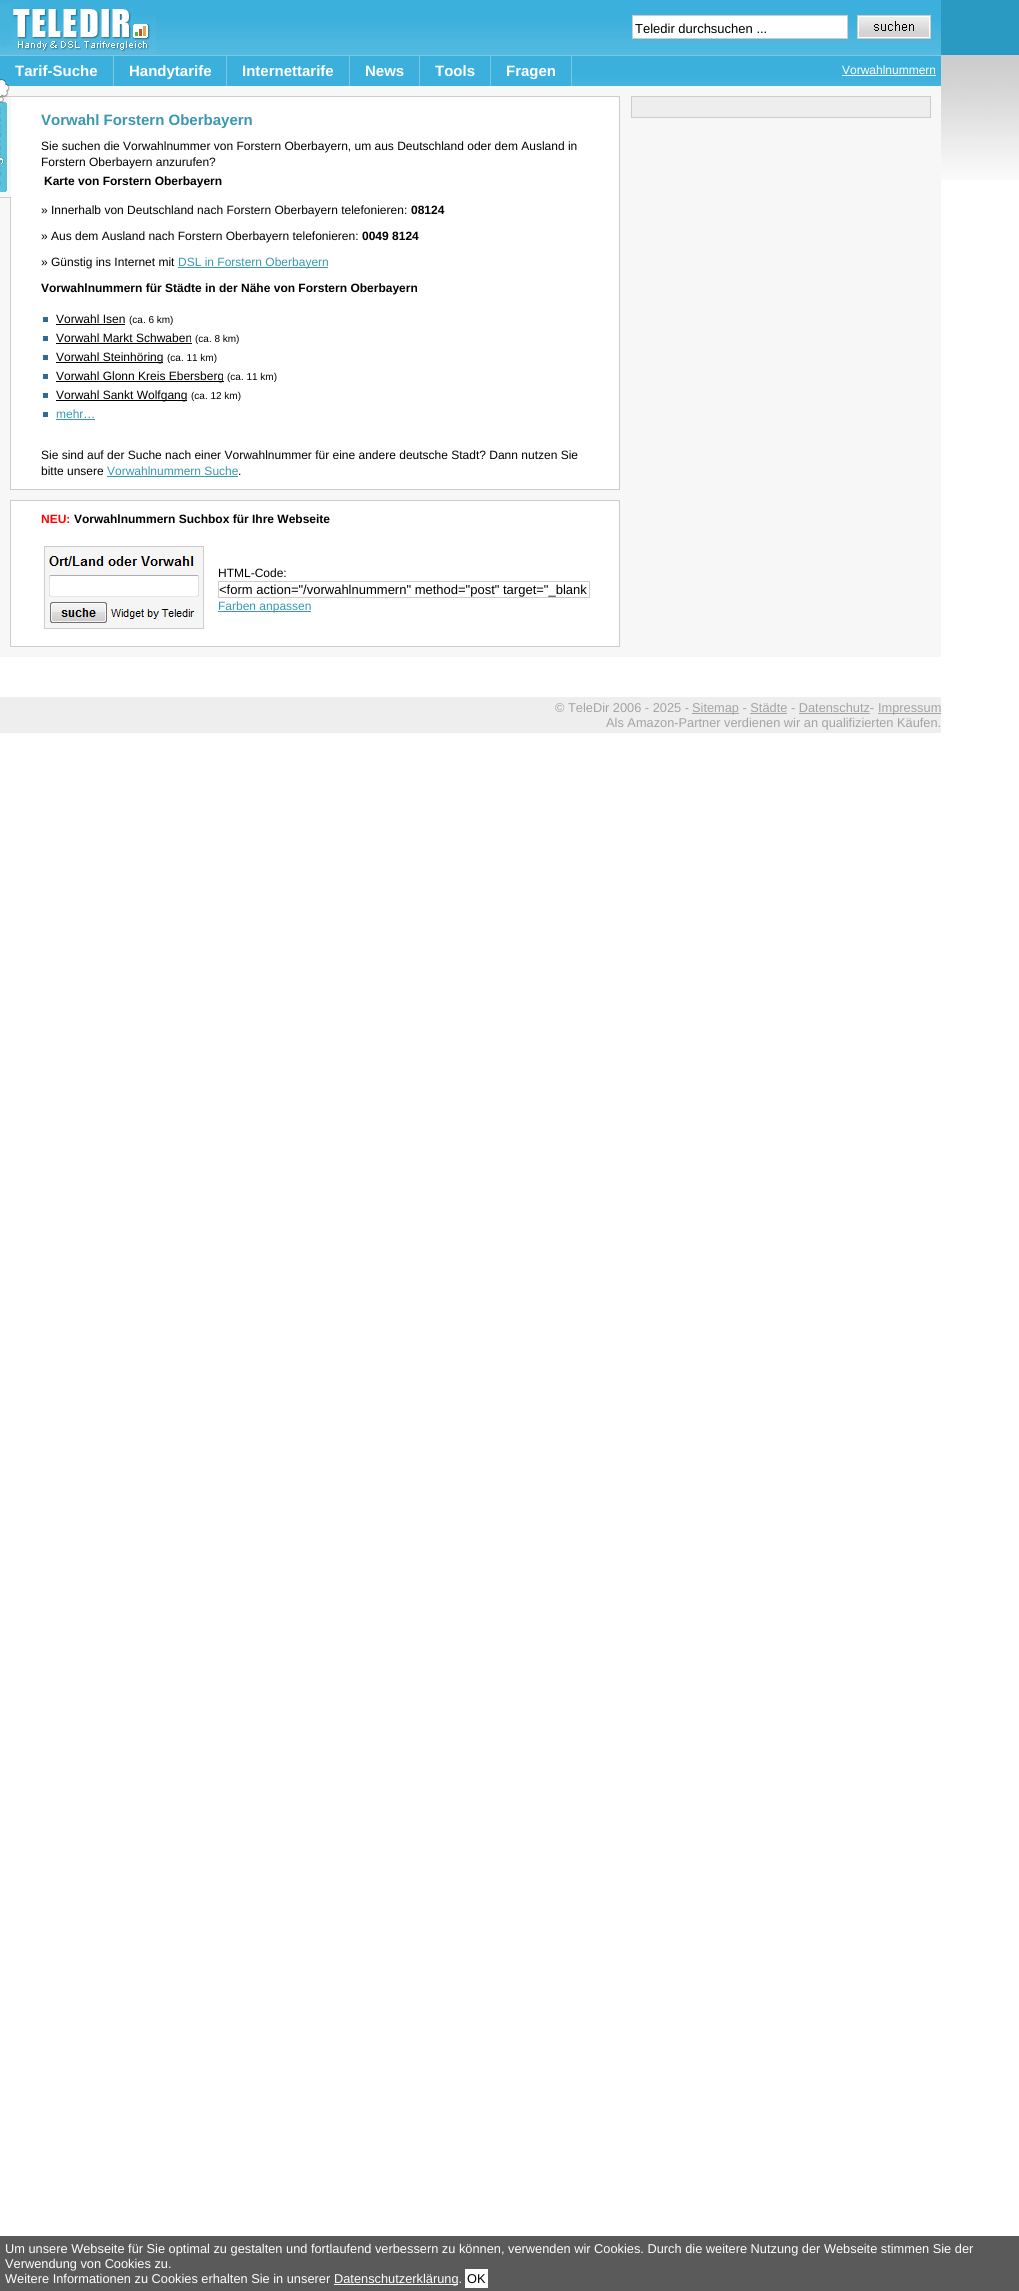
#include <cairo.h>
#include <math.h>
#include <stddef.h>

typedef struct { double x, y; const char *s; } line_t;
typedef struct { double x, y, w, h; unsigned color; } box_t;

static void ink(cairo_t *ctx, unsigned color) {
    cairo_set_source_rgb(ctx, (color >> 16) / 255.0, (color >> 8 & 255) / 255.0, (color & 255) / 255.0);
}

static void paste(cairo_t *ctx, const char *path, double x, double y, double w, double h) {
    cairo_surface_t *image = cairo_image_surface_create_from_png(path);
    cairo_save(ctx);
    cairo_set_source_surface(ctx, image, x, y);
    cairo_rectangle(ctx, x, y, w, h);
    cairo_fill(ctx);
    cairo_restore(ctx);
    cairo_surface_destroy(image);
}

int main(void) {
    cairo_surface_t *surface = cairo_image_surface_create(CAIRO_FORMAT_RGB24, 1019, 2291);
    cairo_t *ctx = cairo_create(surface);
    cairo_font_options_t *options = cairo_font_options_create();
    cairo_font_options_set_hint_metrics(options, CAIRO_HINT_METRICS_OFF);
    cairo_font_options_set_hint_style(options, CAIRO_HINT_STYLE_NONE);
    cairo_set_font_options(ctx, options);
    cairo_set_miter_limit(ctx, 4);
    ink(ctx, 0xFFFFFF);
    cairo_paint(ctx);
    paste(ctx, "media/1.png", 941, 0, 78, 180);
    ink(ctx, 0xF7F7F7);
    cairo_rectangle(ctx, 0, 86, 941, 571);
    cairo_fill(ctx);
    ink(ctx, 0xFFFFFF);
    cairo_rectangle(ctx, 10.5, 96.5, 609, 393);
    cairo_fill_preserve(ctx);
    ink(ctx, 0xCCCCCC);
    cairo_set_line_width(ctx, 1);
    cairo_stroke(ctx);
    ink(ctx, 0xF7F7F7);
    cairo_rectangle(ctx, 10, 97, 1, 100);
    cairo_fill(ctx);
    paste(ctx, "media/2.png", 0, 102, 7, 90);
    {
        static const box_t items[] = {
            {0, 96, 11, 1, 0xCCCCCC},
            {0, 197, 11, 1, 0xCCCCCC},
            {0, 56, 113, 30, 0x3CB0DC},
        };
        for (size_t i = 0; i < sizeof items / sizeof *items; i++) {
            ink(ctx, items[i].color);
            cairo_rectangle(ctx, items[i].x, items[i].y, items[i].w, items[i].h);
            cairo_fill(ctx);
        }
    }
    paste(ctx, "media/3.png", 0, 79, 10, 25);
    paste(ctx, "media/4.png", 0, 0, 941, 55);
    paste(ctx, "media/5.png", 0, 2, 156, 53);
    ink(ctx, 0xFFFFFF);
    cairo_rectangle(ctx, 632.5, 15.5, 215, 23);
    cairo_fill_preserve(ctx);
    ink(ctx, 0xCCCCCC);
    cairo_stroke(ctx);
    cairo_select_font_face(ctx, "Liberation Sans", CAIRO_FONT_SLANT_NORMAL, CAIRO_FONT_WEIGHT_NORMAL);
    cairo_set_font_size(ctx, 13);
    ink(ctx, 0x000000);
    cairo_move_to(ctx, 635, 33);
    cairo_show_text(ctx, "Teledir durchsuchen ...");
    paste(ctx, "media/6.png", 857, 15, 74, 24);
    paste(ctx, "media/7.png", 572, 56, 369, 30);
    ink(ctx, 0x7FC6E1);
    cairo_rectangle(ctx, 0, 55, 941, 1);
    cairo_fill(ctx);
    cairo_rectangle(ctx, 113, 56, 1, 30);
    cairo_fill(ctx);
    cairo_select_font_face(ctx, "Liberation Sans", CAIRO_FONT_SLANT_NORMAL, CAIRO_FONT_WEIGHT_BOLD);
    cairo_set_font_size(ctx, 15);
    ink(ctx, 0xFFFFFF);
    cairo_move_to(ctx, 15, 76);
    cairo_show_text(ctx, "Tarif-Suche");
    ink(ctx, 0x3CB0DC);
    cairo_rectangle(ctx, 114, 56, 112, 30);
    cairo_fill(ctx);
    ink(ctx, 0x7FC6E1);
    cairo_rectangle(ctx, 226, 56, 1, 30);
    cairo_fill(ctx);
    ink(ctx, 0xFFFFFF);
    cairo_move_to(ctx, 129, 76);
    cairo_show_text(ctx, "Handytarife");
    ink(ctx, 0x3CB0DC);
    cairo_rectangle(ctx, 227, 56, 122, 30);
    cairo_fill(ctx);
    ink(ctx, 0x7FC6E1);
    cairo_rectangle(ctx, 349, 56, 1, 30);
    cairo_fill(ctx);
    ink(ctx, 0xFFFFFF);
    cairo_move_to(ctx, 242, 76);
    cairo_show_text(ctx, "Internettarife");
    ink(ctx, 0x3CB0DC);
    cairo_rectangle(ctx, 350, 56, 69, 30);
    cairo_fill(ctx);
    ink(ctx, 0x7FC6E1);
    cairo_rectangle(ctx, 419, 56, 1, 30);
    cairo_fill(ctx);
    ink(ctx, 0xFFFFFF);
    cairo_move_to(ctx, 365, 76);
    cairo_show_text(ctx, "News");
    ink(ctx, 0x3CB0DC);
    cairo_rectangle(ctx, 420, 56, 70, 30);
    cairo_fill(ctx);
    ink(ctx, 0x7FC6E1);
    cairo_rectangle(ctx, 490, 56, 1, 30);
    cairo_fill(ctx);
    ink(ctx, 0xFFFFFF);
    cairo_move_to(ctx, 435, 76);
    cairo_show_text(ctx, "Tools");
    ink(ctx, 0x3CB0DC);
    cairo_rectangle(ctx, 491, 56, 80, 30);
    cairo_fill(ctx);
    ink(ctx, 0x7FC6E1);
    cairo_rectangle(ctx, 571, 56, 1, 30);
    cairo_fill(ctx);
    ink(ctx, 0xFFFFFF);
    cairo_move_to(ctx, 506, 76);
    cairo_show_text(ctx, "Fragen");
    cairo_select_font_face(ctx, "Liberation Sans", CAIRO_FONT_SLANT_NORMAL, CAIRO_FONT_WEIGHT_NORMAL);
    cairo_set_font_size(ctx, 12);
    cairo_move_to(ctx, 842, 74);
    cairo_show_text(ctx, "Vorwahlnummern");
    cairo_rectangle(ctx, 842, 75, 94, 1);
    cairo_fill(ctx);
    ink(ctx, 0xEEEEEE);
    cairo_rectangle(ctx, 631.5, 96.5, 299, 21);
    cairo_fill_preserve(ctx);
    ink(ctx, 0xCCCCCC);
    cairo_stroke(ctx);
    cairo_select_font_face(ctx, "Liberation Sans", CAIRO_FONT_SLANT_NORMAL, CAIRO_FONT_WEIGHT_BOLD);
    cairo_set_font_size(ctx, 15);
    ink(ctx, 0x3997B0);
    cairo_move_to(ctx, 41, 125);
    cairo_show_text(ctx, "Vorwahl Forstern Oberbayern");
    cairo_select_font_face(ctx, "Liberation Sans", CAIRO_FONT_SLANT_NORMAL, CAIRO_FONT_WEIGHT_NORMAL);
    cairo_set_font_size(ctx, 12);
    ink(ctx, 0x000000);
    cairo_move_to(ctx, 41, 150);
    cairo_show_text(ctx, "Sie suchen die Vorwahlnummer von Forstern Oberbayern, um aus Deutschland oder dem Ausland in");
    cairo_move_to(ctx, 41, 166);
    cairo_show_text(ctx, "Forstern Oberbayern anzurufen?");
    cairo_select_font_face(ctx, "Liberation Sans", CAIRO_FONT_SLANT_NORMAL, CAIRO_FONT_WEIGHT_BOLD);
    cairo_move_to(ctx, 44, 185);
    cairo_show_text(ctx, "Karte von Forstern Oberbayern");
    cairo_select_font_face(ctx, "Liberation Sans", CAIRO_FONT_SLANT_NORMAL, CAIRO_FONT_WEIGHT_NORMAL);
    cairo_move_to(ctx, 41, 214);
    cairo_show_text(ctx, "» Innerhalb von Deutschland nach Forstern Oberbayern telefonieren:");
    cairo_select_font_face(ctx, "Liberation Sans", CAIRO_FONT_SLANT_NORMAL, CAIRO_FONT_WEIGHT_BOLD);
    cairo_move_to(ctx, 411, 214);
    cairo_show_text(ctx, "08124");
    cairo_select_font_face(ctx, "Liberation Sans", CAIRO_FONT_SLANT_NORMAL, CAIRO_FONT_WEIGHT_NORMAL);
    cairo_move_to(ctx, 41, 240);
    cairo_show_text(ctx, "» Aus dem Ausland nach Forstern Oberbayern telefonieren:");
    cairo_select_font_face(ctx, "Liberation Sans", CAIRO_FONT_SLANT_NORMAL, CAIRO_FONT_WEIGHT_BOLD);
    cairo_move_to(ctx, 362, 240);
    cairo_show_text(ctx, "0049 8124");
    cairo_select_font_face(ctx, "Liberation Sans", CAIRO_FONT_SLANT_NORMAL, CAIRO_FONT_WEIGHT_NORMAL);
    cairo_move_to(ctx, 41, 266);
    cairo_show_text(ctx, "» Günstig ins Internet mit");
    ink(ctx, 0x3997B0);
    cairo_rectangle(ctx, 178, 267, 150, 1);
    cairo_fill(ctx);
    cairo_move_to(ctx, 178, 266);
    cairo_show_text(ctx, "DSL in Forstern Oberbayern");
    cairo_select_font_face(ctx, "Liberation Sans", CAIRO_FONT_SLANT_NORMAL, CAIRO_FONT_WEIGHT_BOLD);
    ink(ctx, 0x000000);
    cairo_move_to(ctx, 41, 292);
    cairo_show_text(ctx, "Vorwahlnummern für Städte in der Nähe von Forstern Oberbayern");
    ink(ctx, 0x306B97);
    cairo_rectangle(ctx, 43, 317, 5, 5);
    cairo_fill(ctx);
    cairo_select_font_face(ctx, "Liberation Sans", CAIRO_FONT_SLANT_NORMAL, CAIRO_FONT_WEIGHT_NORMAL);
    ink(ctx, 0x000000);
    cairo_move_to(ctx, 56, 323);
    cairo_show_text(ctx, "Vorwahl Isen");
    cairo_rectangle(ctx, 56, 324, 69, 1);
    cairo_fill(ctx);
    cairo_set_font_size(ctx, 10);
    cairo_move_to(ctx, 129, 323);
    cairo_show_text(ctx, "(ca. 6 km)");
    ink(ctx, 0x306B97);
    cairo_rectangle(ctx, 43, 336, 5, 5);
    cairo_fill(ctx);
    cairo_set_font_size(ctx, 12);
    ink(ctx, 0x000000);
    cairo_move_to(ctx, 56, 342);
    cairo_show_text(ctx, "Vorwahl Markt Schwaben");
    cairo_rectangle(ctx, 56, 343, 136, 1);
    cairo_fill(ctx);
    cairo_set_font_size(ctx, 10);
    cairo_move_to(ctx, 195, 342);
    cairo_show_text(ctx, "(ca. 8 km)");
    ink(ctx, 0x306B97);
    cairo_rectangle(ctx, 43, 355, 5, 5);
    cairo_fill(ctx);
    ink(ctx, 0x000000);
    cairo_rectangle(ctx, 56, 362, 107, 1);
    cairo_fill(ctx);
    cairo_set_font_size(ctx, 12);
    cairo_move_to(ctx, 56, 361);
    cairo_show_text(ctx, "Vorwahl Steinhöring");
    cairo_set_font_size(ctx, 10);
    cairo_move_to(ctx, 167, 361);
    cairo_show_text(ctx, "(ca. 11 km)");
    ink(ctx, 0x306B97);
    cairo_rectangle(ctx, 43, 374, 5, 5);
    cairo_fill(ctx);
    ink(ctx, 0x000000);
    cairo_rectangle(ctx, 56, 381, 168, 1);
    cairo_fill(ctx);
    cairo_set_font_size(ctx, 12);
    cairo_move_to(ctx, 56, 380);
    cairo_show_text(ctx, "Vorwahl Glonn Kreis Ebersberg");
    cairo_set_font_size(ctx, 10);
    cairo_move_to(ctx, 227, 380);
    cairo_show_text(ctx, "(ca. 11 km)");
    ink(ctx, 0x306B97);
    cairo_rectangle(ctx, 43, 393, 5, 5);
    cairo_fill(ctx);
    ink(ctx, 0x000000);
    cairo_rectangle(ctx, 56, 400, 131, 1);
    cairo_fill(ctx);
    cairo_set_font_size(ctx, 12);
    cairo_move_to(ctx, 56, 399);
    cairo_show_text(ctx, "Vorwahl Sankt Wolfgang");
    cairo_set_font_size(ctx, 10);
    cairo_move_to(ctx, 191, 399);
    cairo_show_text(ctx, "(ca. 12 km)");
    ink(ctx, 0x306B97);
    cairo_rectangle(ctx, 43, 412, 5, 5);
    cairo_fill(ctx);
    cairo_set_font_size(ctx, 12);
    ink(ctx, 0x3997B0);
    cairo_move_to(ctx, 56, 418);
    cairo_show_text(ctx, "mehr…");
    cairo_rectangle(ctx, 56, 419, 39, 1);
    cairo_fill(ctx);
    ink(ctx, 0x000000);
    cairo_move_to(ctx, 41, 459);
    cairo_show_text(ctx, "Sie sind auf der Suche nach einer Vorwahlnummer für eine andere deutsche Stadt? Dann nutzen Sie");
    cairo_move_to(ctx, 41, 475);
    cairo_show_text(ctx, "bitte unsere");
    ink(ctx, 0x3997B0);
    cairo_move_to(ctx, 107, 475);
    cairo_show_text(ctx, "Vorwahlnummern Suche");
    cairo_rectangle(ctx, 107, 476, 131, 1);
    cairo_fill(ctx);
    ink(ctx, 0x000000);
    cairo_move_to(ctx, 238, 475);
    cairo_show_text(ctx, ".");
    ink(ctx, 0xFFFFFF);
    cairo_rectangle(ctx, 10.5, 500.5, 609, 146);
    cairo_fill_preserve(ctx);
    ink(ctx, 0xCCCCCC);
    cairo_stroke(ctx);
    cairo_select_font_face(ctx, "Liberation Sans", CAIRO_FONT_SLANT_NORMAL, CAIRO_FONT_WEIGHT_BOLD);
    ink(ctx, 0xFF0000);
    cairo_move_to(ctx, 41, 523);
    cairo_show_text(ctx, "NEU:");
    ink(ctx, 0x000000);
    cairo_move_to(ctx, 74, 523);
    cairo_show_text(ctx, "Vorwahlnummern Suchbox für Ihre Webseite");
    paste(ctx, "media/8.png", 44, 546, 160, 83);
    cairo_select_font_face(ctx, "Liberation Sans", CAIRO_FONT_SLANT_NORMAL, CAIRO_FONT_WEIGHT_NORMAL);
    cairo_move_to(ctx, 218, 577);
    cairo_show_text(ctx, "HTML-Code:");
    cairo_rectangle(ctx, 218.5, 581.5, 371, 16);
    ink(ctx, 0xCCCCCC);
    cairo_stroke(ctx);
    cairo_set_font_size(ctx, 13);
    ink(ctx, 0x000000);
    cairo_move_to(ctx, 219, 594);
    cairo_show_text(ctx, "<form action=\"/vorwahlnummern\" method=\"post\" target=\"_blank");
    ink(ctx, 0x3997B0);
    cairo_rectangle(ctx, 218, 611, 93, 1);
    cairo_fill(ctx);
    cairo_set_font_size(ctx, 12);
    cairo_move_to(ctx, 218, 610);
    cairo_show_text(ctx, "Farben anpassen");
    ink(ctx, 0xEEEEEE);
    cairo_rectangle(ctx, 0, 697, 941, 36);
    cairo_fill(ctx);
    cairo_set_font_size(ctx, 12.8);
    ink(ctx, 0xA4A3A3);
    cairo_move_to(ctx, 555, 712);
    cairo_show_text(ctx, "© TeleDir 2006 - 2025 -");
    cairo_rectangle(ctx, 692, 713, 47, 1);
    cairo_fill(ctx);
    cairo_move_to(ctx, 692, 712);
    cairo_show_text(ctx, "Sitemap - Städte - Datenschutz-");
    cairo_rectangle(ctx, 878, 713, 63, 1);
    cairo_fill(ctx);
    cairo_move_to(ctx, 878, 712);
    cairo_show_text(ctx, "Impressum");
    cairo_rectangle(ctx, 750, 713, 37, 1);
    cairo_fill(ctx);
    cairo_rectangle(ctx, 799, 713, 71, 1);
    cairo_fill(ctx);
    cairo_move_to(ctx, 606, 727);
    cairo_show_text(ctx, "Als Amazon-Partner verdienen wir an qualifizierten Käufen.");
    ink(ctx, 0x5A5A5A);
    cairo_rectangle(ctx, 0, 2236, 1019, 55);
    cairo_fill(ctx);
    ink(ctx, 0xFFFFFF);
    {
        static const line_t items[] = {
            {5, 2253, "Um unsere Webseite für Sie optimal zu gestalten und fortlaufend verbessern zu können, verwenden wir Cookies. Durch die weitere Nutzung der Webseite stimmen Sie der"},
            {5, 2268, "Verwendung von Cookies zu."},
            {5, 2283, "Weitere Informationen zu Cookies erhalten Sie in unserer"},
        };
        for (size_t i = 0; i < sizeof items / sizeof *items; i++) {
            cairo_move_to(ctx, items[i].x, items[i].y);
            cairo_show_text(ctx, items[i].s);
        }
    }
    cairo_rectangle(ctx, 334, 2284, 124, 1);
    cairo_fill(ctx);
    cairo_move_to(ctx, 334, 2283);
    cairo_show_text(ctx, "Datenschutzerklärung.");
    cairo_rectangle(ctx, 465, 2269, 23, 19);
    cairo_fill(ctx);
    ink(ctx, 0x000000);
    cairo_move_to(ctx, 467, 2283);
    cairo_show_text(ctx, "OK");
    cairo_surface_write_to_png(surface, "image.png");
    cairo_font_options_destroy(options);
    cairo_destroy(ctx);
    cairo_surface_destroy(surface);
    return 0;
}
